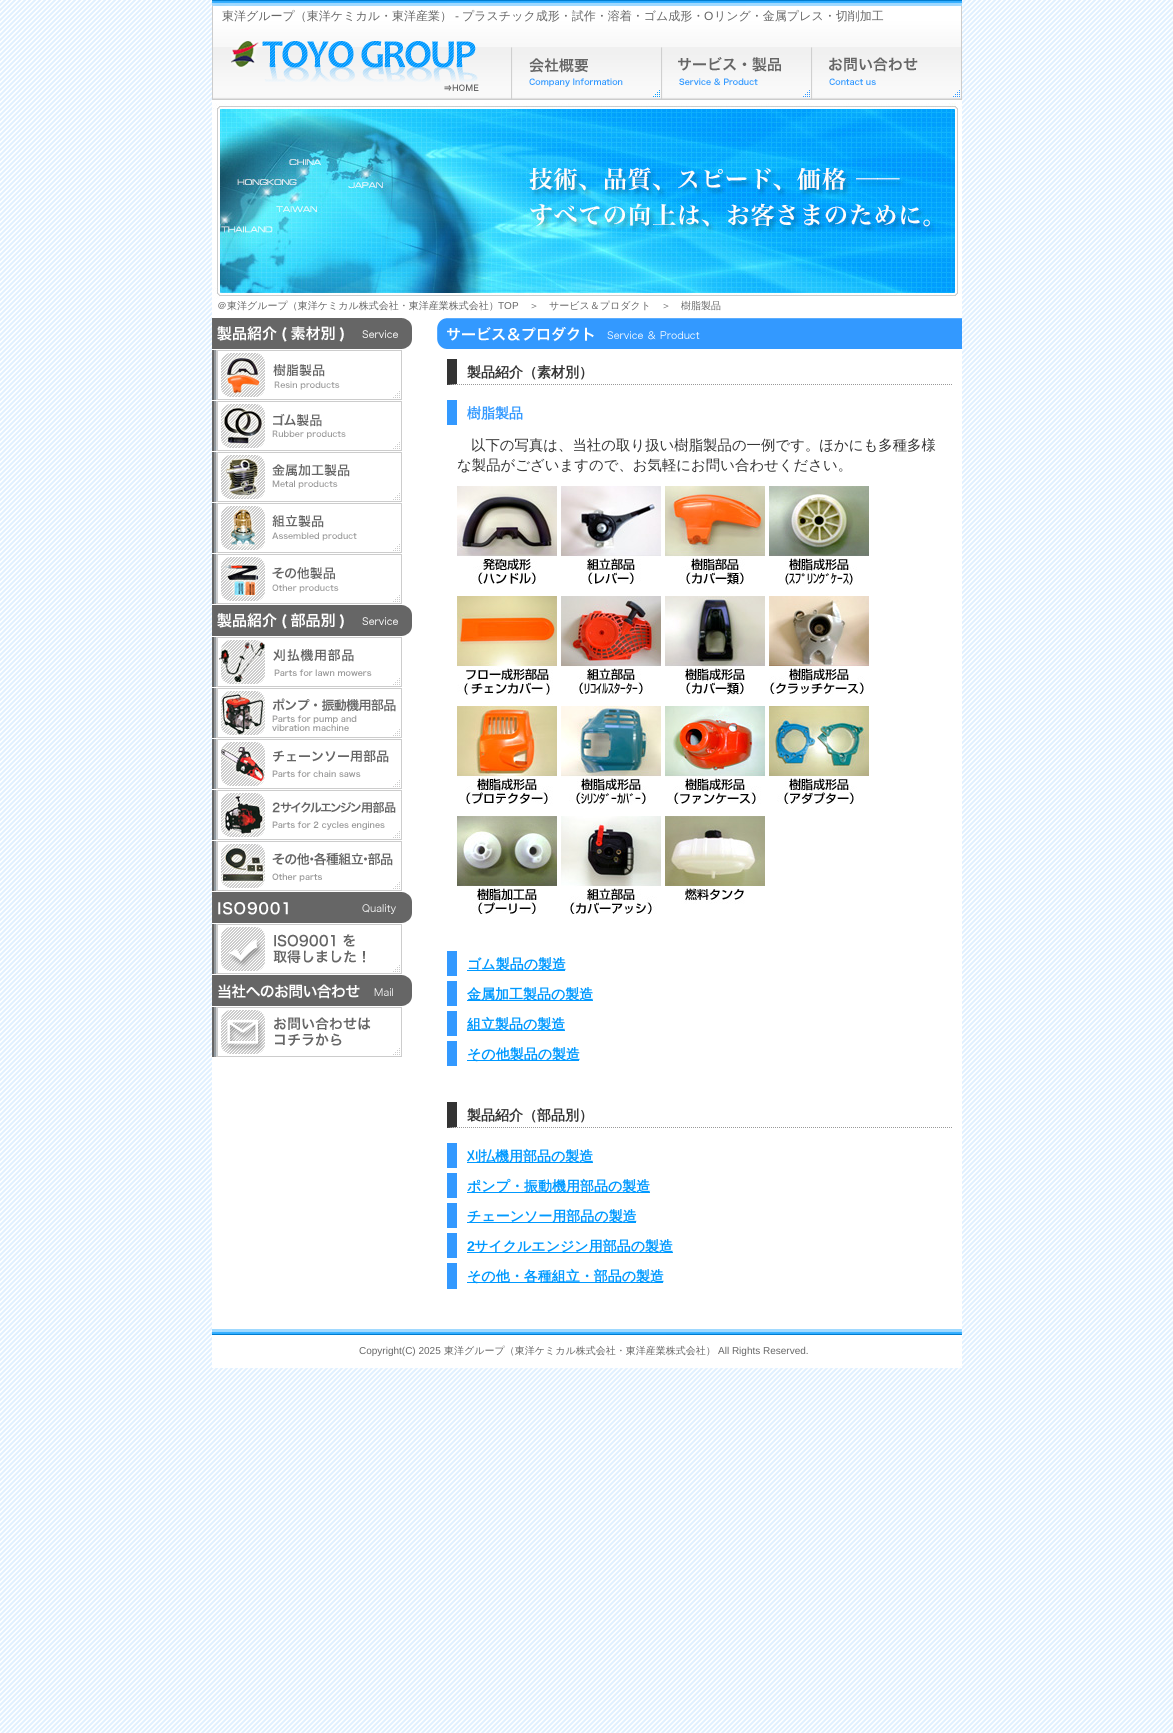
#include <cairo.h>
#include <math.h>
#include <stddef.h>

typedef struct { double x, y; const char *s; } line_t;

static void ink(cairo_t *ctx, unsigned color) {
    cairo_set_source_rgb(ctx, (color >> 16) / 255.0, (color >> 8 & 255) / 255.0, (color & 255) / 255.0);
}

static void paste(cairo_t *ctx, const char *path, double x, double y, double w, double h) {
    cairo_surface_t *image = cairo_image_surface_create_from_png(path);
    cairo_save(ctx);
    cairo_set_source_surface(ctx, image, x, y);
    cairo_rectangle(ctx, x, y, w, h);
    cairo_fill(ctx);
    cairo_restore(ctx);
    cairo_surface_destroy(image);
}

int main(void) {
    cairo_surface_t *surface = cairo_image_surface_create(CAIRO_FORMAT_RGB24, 1173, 1733);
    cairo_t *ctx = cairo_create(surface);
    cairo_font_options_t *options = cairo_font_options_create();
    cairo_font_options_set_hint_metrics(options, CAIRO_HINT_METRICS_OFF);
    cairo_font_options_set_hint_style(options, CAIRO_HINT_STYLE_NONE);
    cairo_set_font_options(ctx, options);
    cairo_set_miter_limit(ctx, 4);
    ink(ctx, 0xFFFFFF);
    cairo_paint(ctx);
    paste(ctx, "media/1.png", 0, 0, 1173, 1733);
    ink(ctx, 0xFFFFFF);
    cairo_rectangle(ctx, 212, 100, 750, 3);
    cairo_fill(ctx);
    paste(ctx, "media/2.png", 212, 0, 750, 100);
    cairo_select_font_face(ctx, "WenQuanYi Zen Hei Medium", CAIRO_FONT_SLANT_NORMAL, CAIRO_FONT_WEIGHT_NORMAL);
    cairo_set_font_size(ctx, 12);
    ink(ctx, 0x666666);
    cairo_move_to(ctx, 222, 20);
    cairo_show_text(ctx, "東洋グループ（東洋ケミカル・東洋産業）");
    cairo_select_font_face(ctx, "Liberation Sans", CAIRO_FONT_SLANT_NORMAL, CAIRO_FONT_WEIGHT_NORMAL);
    cairo_move_to(ctx, 455, 20);
    cairo_show_text(ctx, "-");
    cairo_select_font_face(ctx, "WenQuanYi Zen Hei Medium", CAIRO_FONT_SLANT_NORMAL, CAIRO_FONT_WEIGHT_NORMAL);
    cairo_move_to(ctx, 462, 20);
    cairo_show_text(ctx, "プラスチック成形・試作・溶着・ゴム成形・");
    cairo_select_font_face(ctx, "Liberation Sans", CAIRO_FONT_SLANT_NORMAL, CAIRO_FONT_WEIGHT_NORMAL);
    cairo_move_to(ctx, 704, 20);
    cairo_show_text(ctx, "O");
    cairo_select_font_face(ctx, "WenQuanYi Zen Hei Medium", CAIRO_FONT_SLANT_NORMAL, CAIRO_FONT_WEIGHT_NORMAL);
    cairo_move_to(ctx, 714, 20);
    cairo_show_text(ctx, "リング・金属プレス・切削加工");
    paste(ctx, "media/3.png", 231, 41, 248, 50);
    paste(ctx, "media/4.png", 511, 47, 149, 52);
    paste(ctx, "media/5.png", 661, 47, 149, 52);
    paste(ctx, "media/6.png", 811, 47, 149, 52);
    paste(ctx, "media/7.png", 212, 103, 750, 196);
    ink(ctx, 0xFFFFFF);
    cairo_rectangle(ctx, 212, 299, 750, 1030);
    cairo_fill(ctx);
    cairo_set_font_size(ctx, 10);
    ink(ctx, 0x666666);
    cairo_move_to(ctx, 217, 309);
    cairo_show_text(ctx, "＠東洋グループ（東洋ケミカル株式会社・東洋産業株式会社）");
    cairo_select_font_face(ctx, "Liberation Sans", CAIRO_FONT_SLANT_NORMAL, CAIRO_FONT_WEIGHT_NORMAL);
    cairo_move_to(ctx, 498, 309);
    cairo_show_text(ctx, "TOP");
    cairo_select_font_face(ctx, "WenQuanYi Zen Hei Medium", CAIRO_FONT_SLANT_NORMAL, CAIRO_FONT_WEIGHT_NORMAL);
    {
        static const line_t items[] = {
            {529, 309, "＞"},
            {549, 309, "サービス＆プロダクト"},
            {661, 309, "＞"},
            {681, 309, "樹脂製品"},
        };
        for (size_t i = 0; i < sizeof items / sizeof *items; i++) {
            cairo_move_to(ctx, items[i].x, items[i].y);
            cairo_show_text(ctx, items[i].s);
        }
    }
    paste(ctx, "media/8.png", 212, 318, 200, 31);
    paste(ctx, "media/9.png", 212, 350, 190, 50);
    paste(ctx, "media/10.png", 212, 401, 190, 50);
    paste(ctx, "media/11.png", 212, 452, 190, 50);
    paste(ctx, "media/12.png", 212, 503, 190, 50);
    paste(ctx, "media/13.png", 212, 554, 190, 50);
    paste(ctx, "media/14.png", 212, 605, 200, 31);
    paste(ctx, "media/15.png", 212, 637, 190, 50);
    paste(ctx, "media/16.png", 212, 688, 190, 50);
    paste(ctx, "media/17.png", 212, 739, 190, 50);
    paste(ctx, "media/18.png", 212, 790, 190, 50);
    paste(ctx, "media/19.png", 212, 841, 190, 50);
    paste(ctx, "media/20.png", 212, 892, 200, 31);
    paste(ctx, "media/21.png", 212, 924, 190, 50);
    paste(ctx, "media/22.png", 212, 975, 200, 31);
    paste(ctx, "media/23.png", 212, 1007, 190, 50);
    paste(ctx, "media/24.png", 437, 318, 525, 31);
    cairo_new_path(ctx);
    cairo_move_to(ctx, 447, 384.5);
    cairo_line_to(ctx, 952, 384.5);
    ink(ctx, 0x999999);
    cairo_set_line_width(ctx, 1);
    cairo_set_dash(ctx, (double[]){1, 1}, 2, 0);
    cairo_stroke(ctx);
    ink(ctx, 0x333333);
    cairo_new_path(ctx);
    cairo_move_to(ctx, 447, 385);
    cairo_line_to(ctx, 447, 359);
    cairo_line_to(ctx, 457, 359);
    cairo_line_to(ctx, 457, 384);
    cairo_close_path(ctx);
    cairo_fill(ctx);
    cairo_select_font_face(ctx, "WenQuanYi Zen Hei", CAIRO_FONT_SLANT_NORMAL, CAIRO_FONT_WEIGHT_BOLD);
    cairo_set_font_size(ctx, 14);
    cairo_move_to(ctx, 467, 377);
    cairo_show_text(ctx, "製品紹介（素材別）");
    ink(ctx, 0x3399FF);
    cairo_rectangle(ctx, 447, 400, 10, 25);
    cairo_fill(ctx);
    cairo_move_to(ctx, 467, 418);
    cairo_show_text(ctx, "樹脂製品");
    cairo_select_font_face(ctx, "WenQuanYi Zen Hei Medium", CAIRO_FONT_SLANT_NORMAL, CAIRO_FONT_WEIGHT_NORMAL);
    cairo_set_font_size(ctx, 14.4);
    ink(ctx, 0x333333);
    cairo_move_to(ctx, 471, 450);
    cairo_show_text(ctx, "以下の写真は、当社の取り扱い樹脂製品の一例です。ほかにも多種多様");
    cairo_move_to(ctx, 457, 470);
    cairo_show_text(ctx, "な製品がございますので、お気軽にお問い合わせください。");
    paste(ctx, "media/25.png", 457, 486, 100, 98);
    paste(ctx, "media/26.png", 561, 486, 100, 98);
    paste(ctx, "media/27.png", 665, 486, 100, 99);
    paste(ctx, "media/28.png", 769, 486, 100, 99);
    paste(ctx, "media/29.png", 457, 596, 100, 99);
    paste(ctx, "media/30.png", 561, 596, 100, 98);
    paste(ctx, "media/31.png", 665, 596, 100, 99);
    paste(ctx, "media/32.png", 769, 596, 100, 99);
    paste(ctx, "media/33.png", 457, 706, 100, 100);
    paste(ctx, "media/34.png", 561, 706, 100, 99);
    paste(ctx, "media/35.png", 665, 706, 100, 98);
    paste(ctx, "media/36.png", 769, 706, 100, 98);
    paste(ctx, "media/37.png", 457, 816, 100, 98);
    paste(ctx, "media/38.png", 561, 816, 100, 98);
    paste(ctx, "media/39.png", 665, 816, 100, 88);
    ink(ctx, 0x3399FF);
    cairo_rectangle(ctx, 447, 951, 10, 25);
    cairo_fill(ctx);
    ink(ctx, 0x0099FF);
    cairo_rectangle(ctx, 467, 970, 98, 1);
    cairo_fill(ctx);
    cairo_select_font_face(ctx, "WenQuanYi Zen Hei", CAIRO_FONT_SLANT_NORMAL, CAIRO_FONT_WEIGHT_BOLD);
    cairo_set_font_size(ctx, 14);
    cairo_move_to(ctx, 467, 969);
    cairo_show_text(ctx, "ゴム製品の製造");
    ink(ctx, 0x3399FF);
    cairo_rectangle(ctx, 447, 981, 10, 25);
    cairo_fill(ctx);
    ink(ctx, 0x0099FF);
    cairo_rectangle(ctx, 467, 1000, 126, 1);
    cairo_fill(ctx);
    cairo_move_to(ctx, 467, 999);
    cairo_show_text(ctx, "金属加工製品の製造");
    ink(ctx, 0x3399FF);
    cairo_rectangle(ctx, 447, 1011, 10, 25);
    cairo_fill(ctx);
    ink(ctx, 0x0099FF);
    cairo_rectangle(ctx, 467, 1030, 98, 1);
    cairo_fill(ctx);
    cairo_move_to(ctx, 467, 1029);
    cairo_show_text(ctx, "組立製品の製造");
    ink(ctx, 0x3399FF);
    cairo_rectangle(ctx, 447, 1041, 10, 25);
    cairo_fill(ctx);
    ink(ctx, 0x0099FF);
    cairo_rectangle(ctx, 467, 1060, 112, 1);
    cairo_fill(ctx);
    cairo_move_to(ctx, 467, 1059);
    cairo_show_text(ctx, "その他製品の製造");
    cairo_new_path(ctx);
    cairo_move_to(ctx, 447, 1127.5);
    cairo_line_to(ctx, 952, 1127.5);
    ink(ctx, 0x999999);
    cairo_stroke(ctx);
    ink(ctx, 0x333333);
    cairo_new_path(ctx);
    cairo_move_to(ctx, 447, 1128);
    cairo_line_to(ctx, 447, 1102);
    cairo_line_to(ctx, 457, 1102);
    cairo_line_to(ctx, 457, 1127);
    cairo_close_path(ctx);
    cairo_fill(ctx);
    cairo_move_to(ctx, 467, 1120);
    cairo_show_text(ctx, "製品紹介（部品別）");
    ink(ctx, 0x3399FF);
    cairo_rectangle(ctx, 447, 1143, 10, 25);
    cairo_fill(ctx);
    ink(ctx, 0x0099FF);
    cairo_rectangle(ctx, 467, 1162, 126, 1);
    cairo_fill(ctx);
    cairo_move_to(ctx, 467, 1161);
    cairo_show_text(ctx, "刈払機用部品の製造");
    ink(ctx, 0x3399FF);
    cairo_rectangle(ctx, 447, 1173, 10, 25);
    cairo_fill(ctx);
    ink(ctx, 0x0099FF);
    cairo_rectangle(ctx, 467, 1192, 183, 1);
    cairo_fill(ctx);
    cairo_move_to(ctx, 467, 1191);
    cairo_show_text(ctx, "ポンプ・振動機用部品の製造");
    ink(ctx, 0x3399FF);
    cairo_rectangle(ctx, 447, 1203, 10, 25);
    cairo_fill(ctx);
    ink(ctx, 0x0099FF);
    cairo_rectangle(ctx, 467, 1222, 169, 1);
    cairo_fill(ctx);
    cairo_move_to(ctx, 467, 1221);
    cairo_show_text(ctx, "チェーンソー用部品の製造");
    ink(ctx, 0x3399FF);
    cairo_rectangle(ctx, 447, 1233, 10, 25);
    cairo_fill(ctx);
    cairo_select_font_face(ctx, "Liberation Sans", CAIRO_FONT_SLANT_NORMAL, CAIRO_FONT_WEIGHT_BOLD);
    ink(ctx, 0x0099FF);
    cairo_move_to(ctx, 467, 1251);
    cairo_show_text(ctx, "2");
    cairo_rectangle(ctx, 467, 1252, 206, 1);
    cairo_fill(ctx);
    cairo_select_font_face(ctx, "WenQuanYi Zen Hei", CAIRO_FONT_SLANT_NORMAL, CAIRO_FONT_WEIGHT_BOLD);
    cairo_move_to(ctx, 474, 1251);
    cairo_show_text(ctx, "サイクルエンジン用部品の製造");
    ink(ctx, 0x3399FF);
    cairo_rectangle(ctx, 447, 1263, 10, 26);
    cairo_fill(ctx);
    ink(ctx, 0x0099FF);
    cairo_rectangle(ctx, 467, 1282, 196, 1);
    cairo_fill(ctx);
    cairo_move_to(ctx, 467, 1281);
    cairo_show_text(ctx, "その他・各種組立・部品の製造");
    ink(ctx, 0xFFFFFF);
    cairo_rectangle(ctx, 212, 1335, 750, 33);
    cairo_fill(ctx);
    paste(ctx, "media/40.png", 212, 1329, 750, 6);
    cairo_select_font_face(ctx, "Liberation Sans", CAIRO_FONT_SLANT_NORMAL, CAIRO_FONT_WEIGHT_NORMAL);
    cairo_set_font_size(ctx, 10);
    ink(ctx, 0x666666);
    cairo_move_to(ctx, 359, 1354);
    cairo_show_text(ctx, "Copyright(C) 2025");
    cairo_select_font_face(ctx, "WenQuanYi Zen Hei Medium", CAIRO_FONT_SLANT_NORMAL, CAIRO_FONT_WEIGHT_NORMAL);
    cairo_move_to(ctx, 444, 1354);
    cairo_show_text(ctx, "東洋グループ（東洋ケミカル株式会社・東洋産業株式会社）");
    cairo_select_font_face(ctx, "Liberation Sans", CAIRO_FONT_SLANT_NORMAL, CAIRO_FONT_WEIGHT_NORMAL);
    cairo_move_to(ctx, 718, 1354);
    cairo_show_text(ctx, "All Rights Reserved.");
    cairo_surface_write_to_png(surface, "image.png");
    cairo_font_options_destroy(options);
    cairo_destroy(ctx);
    cairo_surface_destroy(surface);
    return 0;
}
